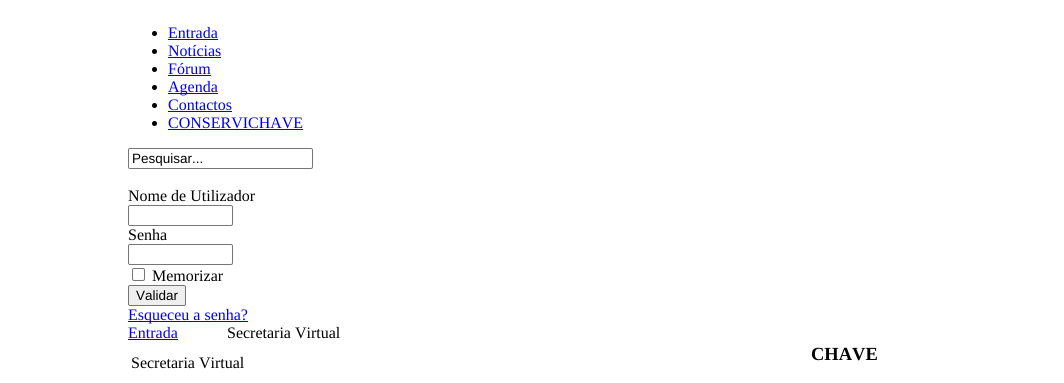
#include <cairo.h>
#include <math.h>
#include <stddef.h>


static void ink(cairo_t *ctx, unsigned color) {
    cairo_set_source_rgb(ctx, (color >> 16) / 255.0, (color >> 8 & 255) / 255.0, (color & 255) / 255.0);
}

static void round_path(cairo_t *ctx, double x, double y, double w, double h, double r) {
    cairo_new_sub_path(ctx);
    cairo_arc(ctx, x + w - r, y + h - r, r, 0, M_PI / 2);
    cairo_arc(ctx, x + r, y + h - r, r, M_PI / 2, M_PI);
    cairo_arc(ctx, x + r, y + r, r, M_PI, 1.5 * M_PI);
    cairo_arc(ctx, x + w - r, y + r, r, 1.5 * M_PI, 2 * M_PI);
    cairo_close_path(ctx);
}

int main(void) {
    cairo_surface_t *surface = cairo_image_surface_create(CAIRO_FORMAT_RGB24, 1064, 383);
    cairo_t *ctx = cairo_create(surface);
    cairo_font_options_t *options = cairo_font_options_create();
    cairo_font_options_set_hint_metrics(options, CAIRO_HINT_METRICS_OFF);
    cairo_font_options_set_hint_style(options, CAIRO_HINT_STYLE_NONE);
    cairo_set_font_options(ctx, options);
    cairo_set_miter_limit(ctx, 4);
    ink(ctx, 0xFFFFFF);
    cairo_paint(ctx);
    ink(ctx, 0x000000);
    cairo_arc(ctx, 154.5, 33.5, 2.5, 0, 2 * M_PI);
    cairo_fill(ctx);
    cairo_select_font_face(ctx, "Liberation Serif", CAIRO_FONT_SLANT_NORMAL, CAIRO_FONT_WEIGHT_NORMAL);
    cairo_set_font_size(ctx, 16);
    ink(ctx, 0x0000EE);
    cairo_move_to(ctx, 168, 38);
    cairo_show_text(ctx, "Entrada");
    cairo_rectangle(ctx, 168, 39, 50, 1);
    cairo_fill(ctx);
    ink(ctx, 0x000000);
    cairo_arc(ctx, 154.5, 51.5, 2.5, 0, 2 * M_PI);
    cairo_fill(ctx);
    ink(ctx, 0x0000EE);
    cairo_move_to(ctx, 168, 56);
    cairo_show_text(ctx, "Notícias");
    cairo_rectangle(ctx, 168, 57, 53, 1);
    cairo_fill(ctx);
    ink(ctx, 0x000000);
    cairo_arc(ctx, 154.5, 69.5, 2.5, 0, 2 * M_PI);
    cairo_fill(ctx);
    ink(ctx, 0x0000EE);
    cairo_move_to(ctx, 168, 74);
    cairo_show_text(ctx, "Fórum");
    cairo_rectangle(ctx, 168, 75, 43, 1);
    cairo_fill(ctx);
    ink(ctx, 0x000000);
    cairo_arc(ctx, 154.5, 87.5, 2.5, 0, 2 * M_PI);
    cairo_fill(ctx);
    ink(ctx, 0x0000EE);
    cairo_rectangle(ctx, 168, 93, 50, 1);
    cairo_fill(ctx);
    cairo_move_to(ctx, 168, 92);
    cairo_show_text(ctx, "Agenda");
    ink(ctx, 0x000000);
    cairo_new_path(ctx);
    cairo_arc(ctx, 154.5, 105.5, 2.5, 0, 2 * M_PI);
    cairo_fill(ctx);
    ink(ctx, 0x0000EE);
    cairo_move_to(ctx, 168, 110);
    cairo_show_text(ctx, "Contactos");
    cairo_rectangle(ctx, 168, 111, 64, 1);
    cairo_fill(ctx);
    ink(ctx, 0x000000);
    cairo_arc(ctx, 154.5, 123.5, 2.5, 0, 2 * M_PI);
    cairo_fill(ctx);
    ink(ctx, 0x0000EE);
    cairo_move_to(ctx, 168, 128);
    cairo_show_text(ctx, "CONSERVICHAVE");
    cairo_rectangle(ctx, 168, 129, 135, 1);
    cairo_fill(ctx);
    round_path(ctx, 128.5, 148.5, 184, 20, 1.5);
    ink(ctx, 0x767676);
    cairo_set_line_width(ctx, 1);
    cairo_stroke(ctx);
    cairo_select_font_face(ctx, "Liberation Sans", CAIRO_FONT_SLANT_NORMAL, CAIRO_FONT_WEIGHT_NORMAL);
    cairo_set_font_size(ctx, 13.5);
    ink(ctx, 0x000000);
    cairo_move_to(ctx, 132, 163);
    cairo_show_text(ctx, "Pesquisar...");
    cairo_select_font_face(ctx, "Liberation Serif", CAIRO_FONT_SLANT_NORMAL, CAIRO_FONT_WEIGHT_NORMAL);
    cairo_set_font_size(ctx, 16);
    cairo_move_to(ctx, 128, 201);
    cairo_show_text(ctx, "Nome de Utilizador");
    round_path(ctx, 128.5, 205.5, 104, 20, 1.5);
    ink(ctx, 0x767676);
    cairo_stroke(ctx);
    ink(ctx, 0x000000);
    cairo_move_to(ctx, 128, 240);
    cairo_show_text(ctx, "Senha");
    round_path(ctx, 128.5, 244.5, 104, 20, 1.5);
    ink(ctx, 0x767676);
    cairo_stroke(ctx);
    round_path(ctx, 132.5, 268.5, 12, 12, 1.5);
    cairo_stroke(ctx);
    ink(ctx, 0x000000);
    cairo_move_to(ctx, 152, 281);
    cairo_show_text(ctx, "Memorizar");
    ink(ctx, 0xEFEFEF);
    round_path(ctx, 128.5, 285.5, 57, 20, 1.5);
    cairo_fill_preserve(ctx);
    ink(ctx, 0x767676);
    cairo_stroke(ctx);
    cairo_select_font_face(ctx, "Liberation Sans", CAIRO_FONT_SLANT_NORMAL, CAIRO_FONT_WEIGHT_NORMAL);
    cairo_set_font_size(ctx, 13.5);
    ink(ctx, 0x000000);
    cairo_move_to(ctx, 136, 300);
    cairo_show_text(ctx, "Validar");
    ink(ctx, 0x0000EE);
    cairo_rectangle(ctx, 128, 321, 120, 1);
    cairo_fill(ctx);
    cairo_select_font_face(ctx, "Liberation Serif", CAIRO_FONT_SLANT_NORMAL, CAIRO_FONT_WEIGHT_NORMAL);
    cairo_set_font_size(ctx, 16);
    cairo_move_to(ctx, 128, 320);
    cairo_show_text(ctx, "Esqueceu a senha?");
    cairo_move_to(ctx, 128, 338);
    cairo_show_text(ctx, "Entrada");
    cairo_rectangle(ctx, 128, 339, 50, 1);
    cairo_fill(ctx);
    ink(ctx, 0x000000);
    cairo_move_to(ctx, 227, 338);
    cairo_show_text(ctx, "Secretaria Virtual");
    cairo_move_to(ctx, 131, 368);
    cairo_show_text(ctx, "Secretaria Virtual");
    cairo_select_font_face(ctx, "Liberation Serif", CAIRO_FONT_SLANT_NORMAL, CAIRO_FONT_WEIGHT_BOLD);
    cairo_set_font_size(ctx, 18.5);
    cairo_move_to(ctx, 811, 360);
    cairo_show_text(ctx, "CHAVE");
    cairo_surface_write_to_png(surface, "image.png");
    cairo_font_options_destroy(options);
    cairo_destroy(ctx);
    cairo_surface_destroy(surface);
    return 0;
}
